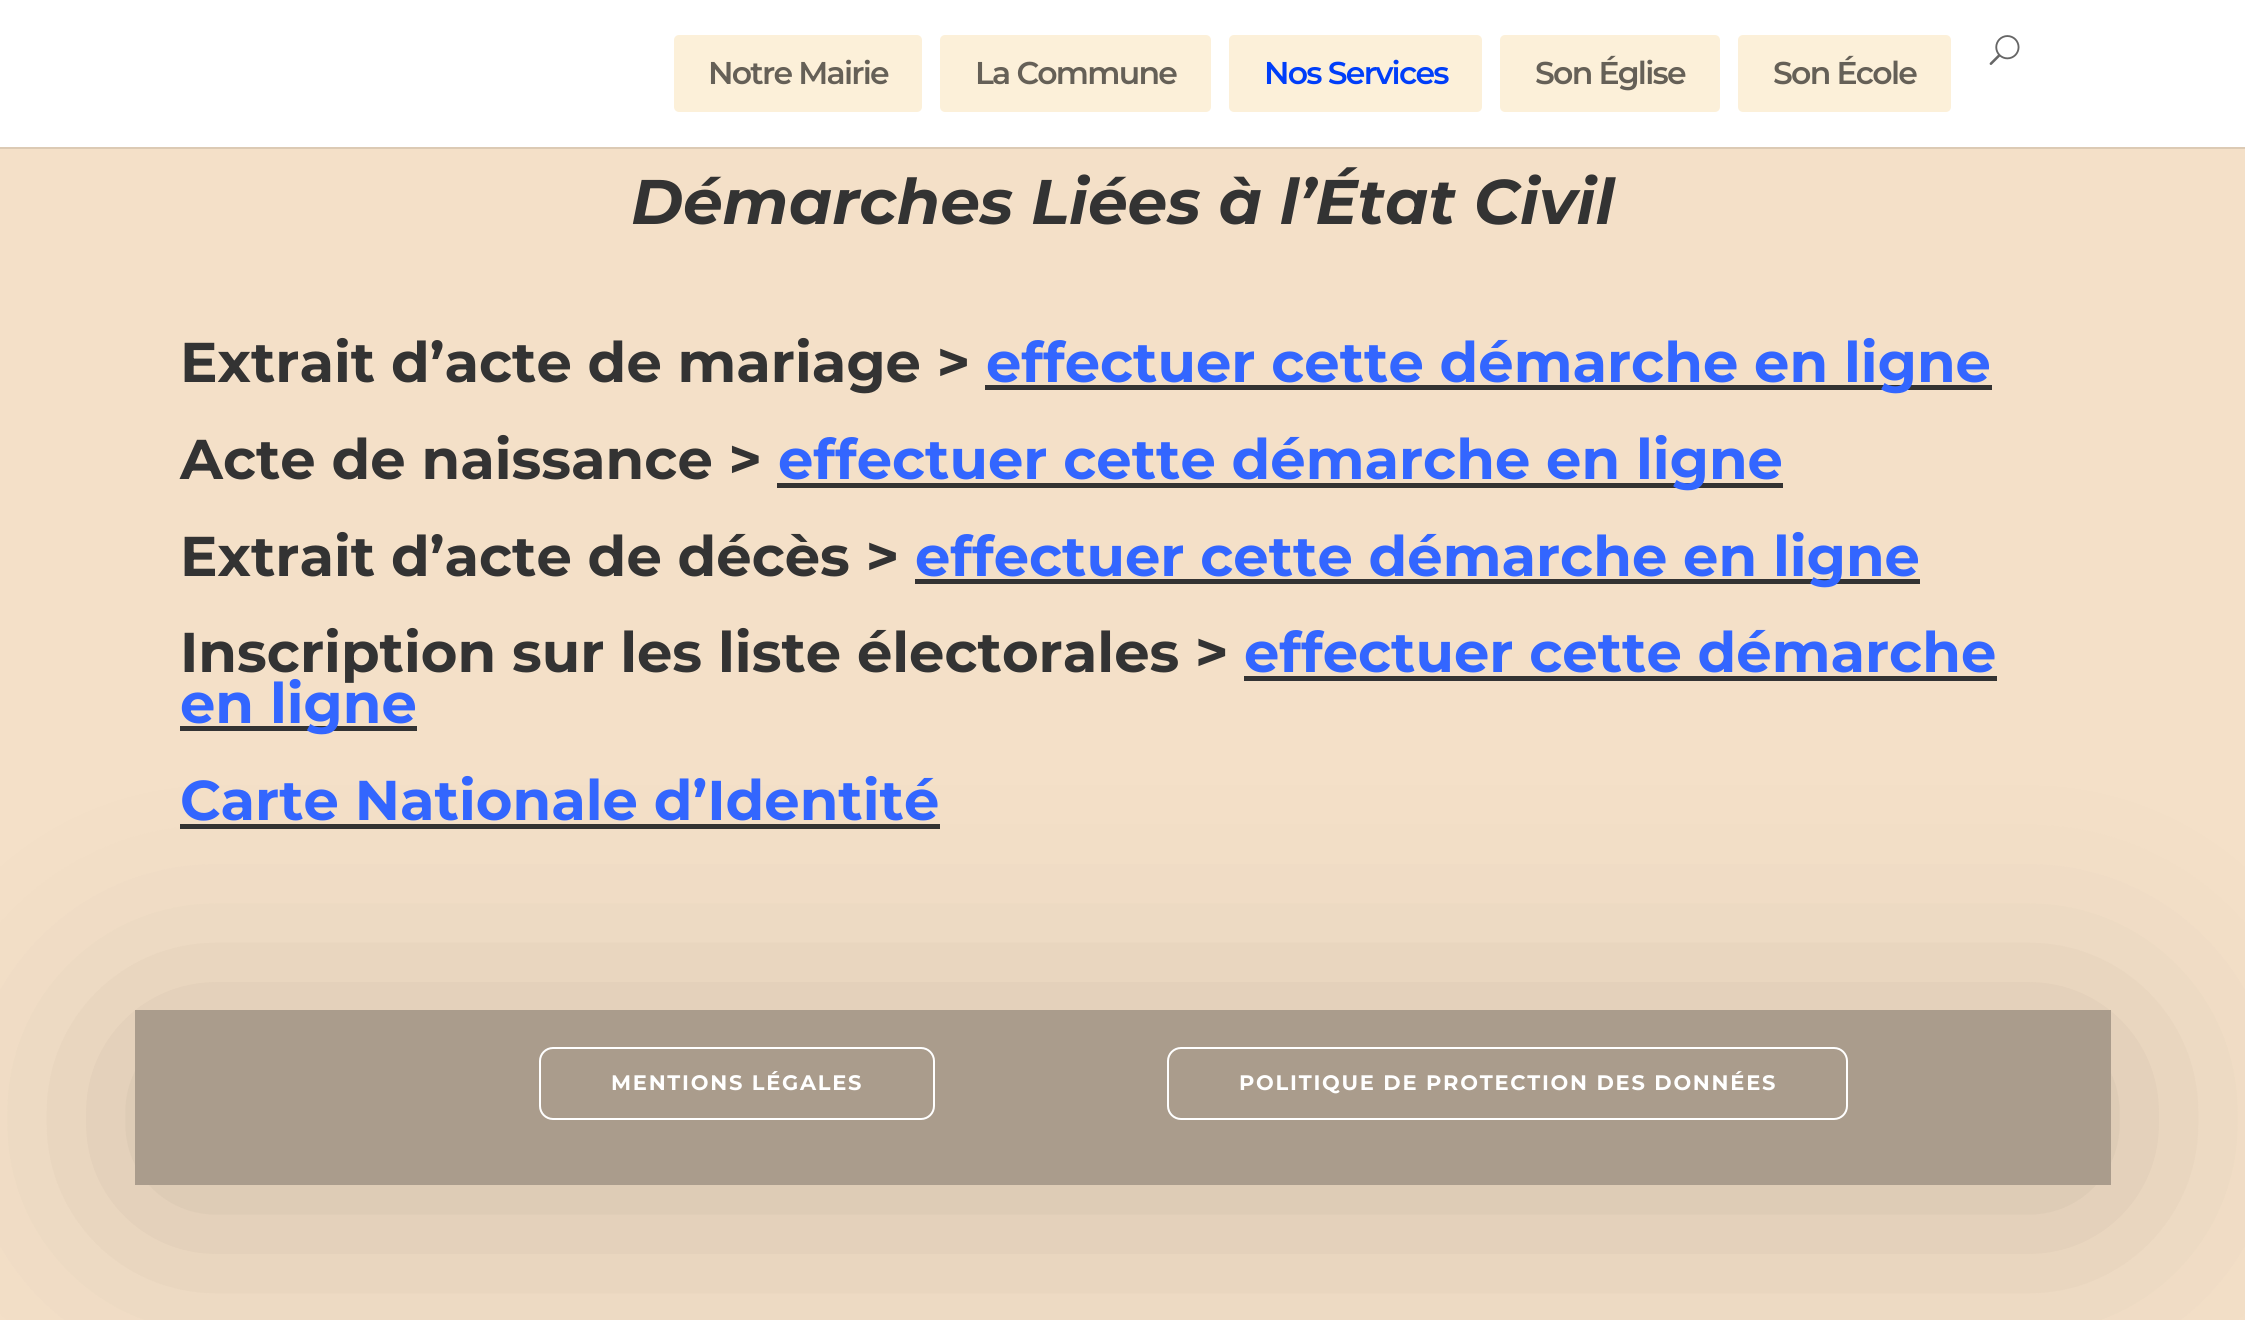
#include <cairo.h>
#include <math.h>
#include <stddef.h>


static void ink(cairo_t *ctx, unsigned color) {
    cairo_set_source_rgb(ctx, (color >> 16) / 255.0, (color >> 8 & 255) / 255.0, (color & 255) / 255.0);
}

static void write_spaced(cairo_t *ctx, double x, double y, const char *s, double letter, double word) {
    cairo_move_to(ctx, x, y);
    while (*s) {
        char ch[5] = {0};
        int n = 0;
        do ch[n++] = *s++; while ((*s & 0xC0) == 0x80);
        cairo_show_text(ctx, ch);
        cairo_rel_move_to(ctx, letter + word * (*ch == ' '), 0);
    }
}

static void round_path(cairo_t *ctx, double x, double y, double w, double h, double r) {
    cairo_new_sub_path(ctx);
    cairo_arc(ctx, x + w - r, y + h - r, r, 0, M_PI / 2);
    cairo_arc(ctx, x + r, y + h - r, r, M_PI / 2, M_PI);
    cairo_arc(ctx, x + r, y + r, r, M_PI, 1.5 * M_PI);
    cairo_arc(ctx, x + w - r, y + r, r, 1.5 * M_PI, 2 * M_PI);
    cairo_close_path(ctx);
}

static void blur_box(cairo_t *ctx, double x, double y, double w, double h, double r, double blur, double alpha) {
    cairo_push_group_with_content(ctx, CAIRO_CONTENT_ALPHA);
    cairo_set_operator(ctx, CAIRO_OPERATOR_SOURCE);
    for (int i = 15; i >= -15 && fmin(w, h) + blur * i / 3 > 0; i -= 2) {
        double e = blur * i / 6;
        cairo_set_source_rgba(ctx, 0, 0, 0, alpha * erfc((i - 1) / 8.5) / 2);
        round_path(ctx, x - e, y - e, w + 2 * e, h + 2 * e, fmax(0, fmin(r + e + blur * .6, fmin(w, h) / 2 + e)));
        cairo_fill(ctx);
    }
    cairo_pattern_t *soft = cairo_pop_group(ctx);
    cairo_mask(ctx, soft);
    cairo_pattern_destroy(soft);
}

static void paste(cairo_t *ctx, const char *path, double x, double y, double w, double h) {
    cairo_surface_t *image = cairo_image_surface_create_from_png(path);
    cairo_save(ctx);
    cairo_set_source_surface(ctx, image, x, y);
    cairo_rectangle(ctx, x, y, w, h);
    cairo_fill(ctx);
    cairo_restore(ctx);
    cairo_surface_destroy(image);
}

int main(void) {
    cairo_surface_t *surface = cairo_image_surface_create(CAIRO_FORMAT_RGB24, 2245, 1320);
    cairo_t *ctx = cairo_create(surface);
    cairo_font_options_t *options = cairo_font_options_create();
    cairo_font_options_set_hint_metrics(options, CAIRO_HINT_METRICS_OFF);
    cairo_font_options_set_hint_style(options, CAIRO_HINT_STYLE_NONE);
    cairo_set_font_options(ctx, options);
    cairo_set_miter_limit(ctx, 4);
    ink(ctx, 0xF4E0C8);
    cairo_paint(ctx);
    ink(ctx, 0xDCCAB4);
    cairo_rectangle(ctx, 0, 147, 2245, 2);
    cairo_fill(ctx);
    ink(ctx, 0xFFFFFF);
    cairo_rectangle(ctx, 0, 0, 2245, 147);
    cairo_fill(ctx);
    paste(ctx, "media/1.png", 1989, 35, 31, 30);
    ink(ctx, 0xFCF0D9);
    round_path(ctx, 674, 35, 248, 77, 5);
    cairo_fill(ctx);
    cairo_select_font_face(ctx, "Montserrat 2 Thin", CAIRO_FONT_SLANT_NORMAL, CAIRO_FONT_WEIGHT_NORMAL);
    cairo_set_font_size(ctx, 31.5);
    ink(ctx, 0x656057);
    write_spaced(ctx, 708, 84, "Notre Mairie", -1.75, 0);
    ink(ctx, 0xFCF0D9);
    round_path(ctx, 940, 35, 271, 77, 5);
    cairo_fill(ctx);
    ink(ctx, 0x656057);
    write_spaced(ctx, 975, 84, "La Commune", -1.75, 0);
    ink(ctx, 0xFCF0D9);
    round_path(ctx, 1229, 35, 253, 77, 5);
    cairo_fill(ctx);
    ink(ctx, 0x003EF9);
    write_spaced(ctx, 1264, 84, "Nos Services", -1.75, 0);
    ink(ctx, 0xFCF0D9);
    round_path(ctx, 1500, 35, 220, 77, 5);
    cairo_fill(ctx);
    ink(ctx, 0x656057);
    write_spaced(ctx, 1535, 84, "Son Église", -1.75, 0);
    ink(ctx, 0xFCF0D9);
    round_path(ctx, 1738, 35, 213, 77, 5);
    cairo_fill(ctx);
    ink(ctx, 0x656057);
    write_spaced(ctx, 1773, 84, "Son École", -1.75, 0);
    cairo_select_font_face(ctx, "Montserrat Thin", CAIRO_FONT_SLANT_ITALIC, CAIRO_FONT_WEIGHT_NORMAL);
    cairo_set_font_size(ctx, 63);
    ink(ctx, 0x333333);
    cairo_move_to(ctx, 631, 224);
    cairo_show_text(ctx, "Démarches Liées à l’État Civil");
    cairo_select_font_face(ctx, "Montserrat Thin", CAIRO_FONT_SLANT_NORMAL, CAIRO_FONT_WEIGHT_NORMAL);
    cairo_set_font_size(ctx, 56);
    cairo_move_to(ctx, 180, 382);
    cairo_show_text(ctx, "Extrait d’acte de mariage >");
    cairo_rectangle(ctx, 985, 385, 1007, 5);
    cairo_fill(ctx);
    ink(ctx, 0x3366FF);
    cairo_move_to(ctx, 986, 382);
    cairo_show_text(ctx, "effectuer cette démarche en ligne");
    ink(ctx, 0x333333);
    cairo_move_to(ctx, 180, 479);
    cairo_show_text(ctx, "Acte de naissance >");
    cairo_rectangle(ctx, 777, 483, 1006, 5);
    cairo_fill(ctx);
    ink(ctx, 0x3366FF);
    cairo_move_to(ctx, 778, 479);
    cairo_show_text(ctx, "effectuer cette démarche en ligne");
    ink(ctx, 0x333333);
    cairo_move_to(ctx, 180, 576);
    cairo_show_text(ctx, "Extrait d’acte de décès >");
    cairo_rectangle(ctx, 915, 579, 1005, 5);
    cairo_fill(ctx);
    ink(ctx, 0x3366FF);
    cairo_move_to(ctx, 915, 576);
    cairo_show_text(ctx, "effectuer cette démarche en ligne");
    ink(ctx, 0x333333);
    cairo_move_to(ctx, 180, 672);
    cairo_show_text(ctx, "Inscription sur les liste électorales >");
    ink(ctx, 0x3366FF);
    cairo_move_to(ctx, 1244, 672);
    cairo_show_text(ctx, "effectuer cette démarche");
    ink(ctx, 0x333333);
    cairo_rectangle(ctx, 1244, 676, 753, 5);
    cairo_fill(ctx);
    cairo_rectangle(ctx, 180, 726, 237, 5);
    cairo_fill(ctx);
    ink(ctx, 0x3366FF);
    cairo_move_to(ctx, 180, 723);
    cairo_show_text(ctx, "en ligne");
    cairo_move_to(ctx, 180, 820);
    cairo_show_text(ctx, "Carte Nationale d’Identité");
    ink(ctx, 0x333333);
    cairo_rectangle(ctx, 180, 824, 760, 5);
    cairo_fill(ctx);
    ink(ctx, 0x000000);
    blur_box(ctx, 145, 1041, 1955, 154, 0, 118, 0.18);
    ink(ctx, 0xAA9C8C);
    cairo_rectangle(ctx, 135, 1010, 1976, 175);
    cairo_fill(ctx);
    round_path(ctx, 540, 1048, 394, 71, 13);
    ink(ctx, 0xFFFFFF);
    cairo_stroke(ctx);
    cairo_set_font_size(ctx, 21);
    write_spaced(ctx, 611, 1090, "MENTIONS LÉGALES", 1.75, 0);
    round_path(ctx, 1168, 1048, 679, 71, 13);
    cairo_stroke(ctx);
    write_spaced(ctx, 1239, 1090, "POLITIQUE DE PROTECTION DES DONNÉES", 1.75, 0);
    cairo_surface_write_to_png(surface, "image.png");
    cairo_font_options_destroy(options);
    cairo_destroy(ctx);
    cairo_surface_destroy(surface);
    return 0;
}
